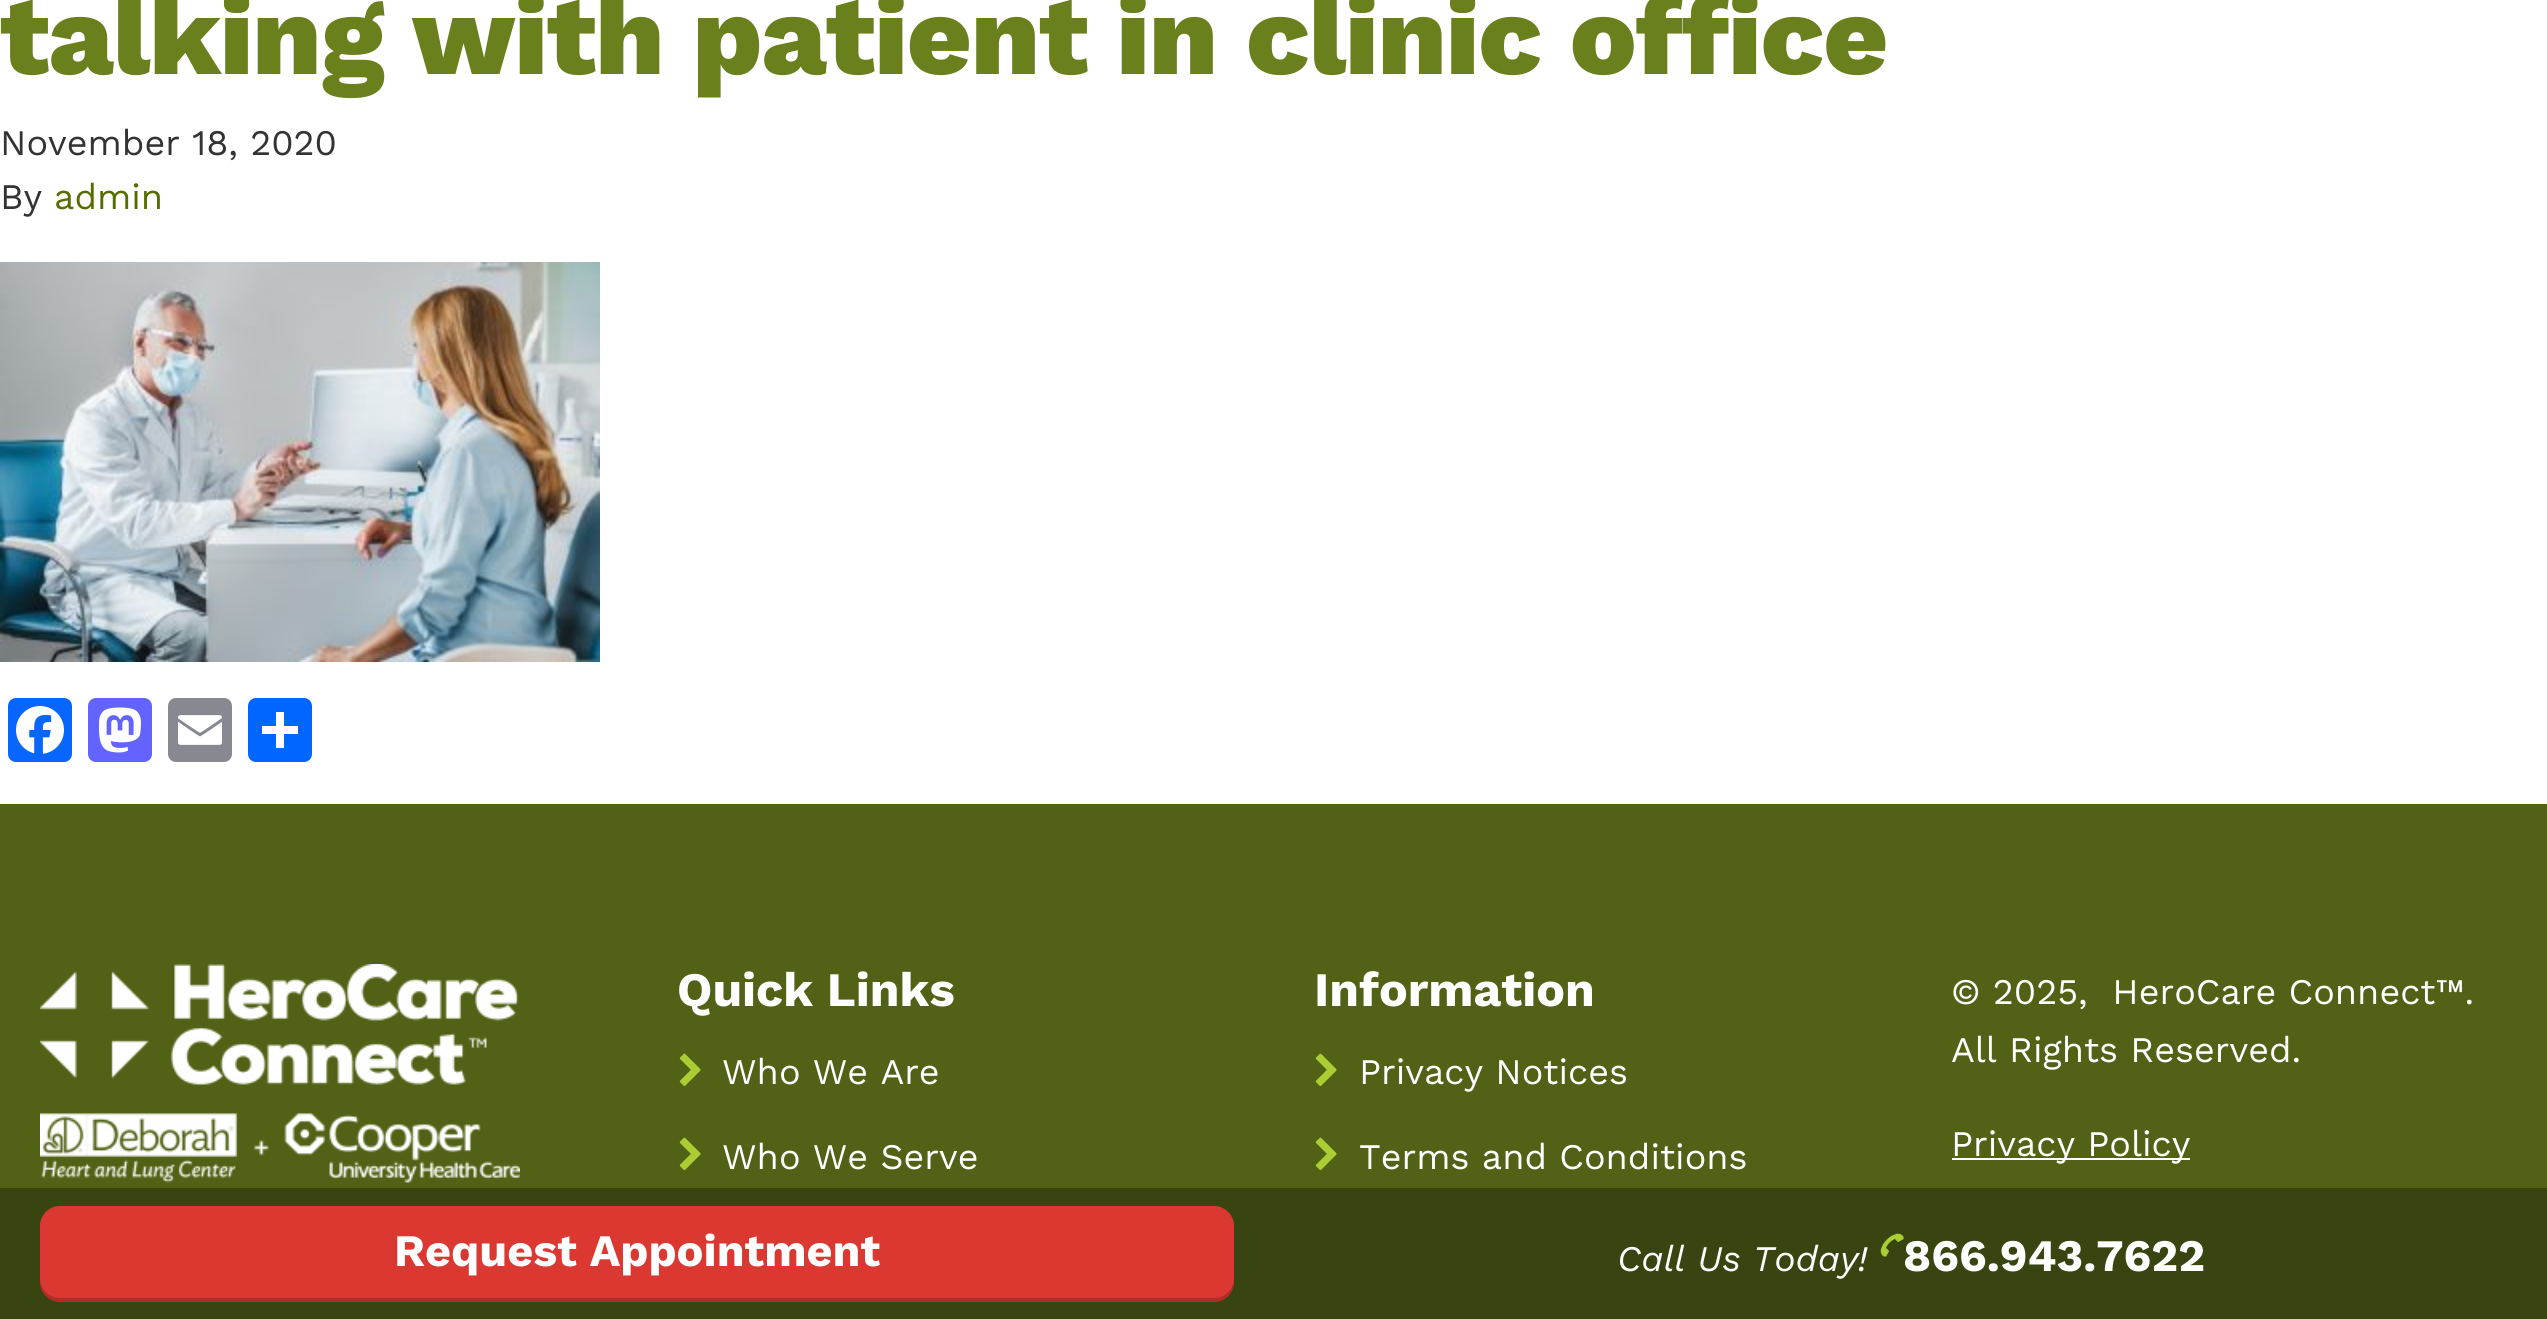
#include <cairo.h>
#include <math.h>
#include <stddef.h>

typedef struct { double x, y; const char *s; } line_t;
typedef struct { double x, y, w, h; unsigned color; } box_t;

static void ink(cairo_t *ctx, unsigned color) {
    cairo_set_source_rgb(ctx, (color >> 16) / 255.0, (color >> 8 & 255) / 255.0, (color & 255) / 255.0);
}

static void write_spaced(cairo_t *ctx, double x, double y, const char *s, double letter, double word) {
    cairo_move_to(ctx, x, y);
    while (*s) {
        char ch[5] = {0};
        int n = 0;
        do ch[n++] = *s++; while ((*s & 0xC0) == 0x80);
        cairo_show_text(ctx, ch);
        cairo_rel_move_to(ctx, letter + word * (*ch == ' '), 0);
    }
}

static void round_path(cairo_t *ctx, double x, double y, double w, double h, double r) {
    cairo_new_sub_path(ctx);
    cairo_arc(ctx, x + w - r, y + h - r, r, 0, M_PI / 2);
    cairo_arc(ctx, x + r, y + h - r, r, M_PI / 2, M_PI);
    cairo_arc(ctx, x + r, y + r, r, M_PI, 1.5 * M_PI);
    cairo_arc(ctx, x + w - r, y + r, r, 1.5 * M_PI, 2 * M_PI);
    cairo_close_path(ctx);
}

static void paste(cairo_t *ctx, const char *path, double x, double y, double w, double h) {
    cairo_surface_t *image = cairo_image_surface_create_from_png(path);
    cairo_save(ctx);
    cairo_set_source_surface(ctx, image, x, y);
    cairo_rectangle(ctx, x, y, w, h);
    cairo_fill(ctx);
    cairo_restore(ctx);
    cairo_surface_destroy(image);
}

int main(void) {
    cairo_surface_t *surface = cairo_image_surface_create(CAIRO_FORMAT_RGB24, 2547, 1319);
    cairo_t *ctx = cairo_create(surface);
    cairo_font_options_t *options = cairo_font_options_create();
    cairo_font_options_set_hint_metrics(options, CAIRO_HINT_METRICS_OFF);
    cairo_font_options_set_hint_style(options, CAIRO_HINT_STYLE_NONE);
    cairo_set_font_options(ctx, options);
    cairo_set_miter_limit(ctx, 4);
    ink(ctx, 0xFFFFFF);
    cairo_paint(ctx);
    cairo_select_font_face(ctx, "Work Sans ExtraBold", CAIRO_FONT_SLANT_NORMAL, CAIRO_FONT_WEIGHT_NORMAL);
    cairo_set_font_size(ctx, 112);
    ink(ctx, 0x6A801C);
    write_spaced(ctx, 0, 74, "talking with patient in clinic office", -1.1, 0);
    cairo_select_font_face(ctx, "Work Sans", CAIRO_FONT_SLANT_NORMAL, CAIRO_FONT_WEIGHT_NORMAL);
    cairo_set_font_size(ctx, 36);
    ink(ctx, 0x333333);
    cairo_move_to(ctx, 0, 155);
    cairo_show_text(ctx, "November 18, 2020");
    cairo_move_to(ctx, 0, 209);
    cairo_show_text(ctx, "By");
    ink(ctx, 0x566D00);
    cairo_move_to(ctx, 54, 209);
    cairo_show_text(ctx, "admin");
    paste(ctx, "media/1.png", 0, 262, 600, 400);
    ink(ctx, 0x0866FF);
    round_path(ctx, 8, 698, 64, 64, 8);
    cairo_fill(ctx);
    paste(ctx, "media/2.png", 16, 706, 48, 48);
    ink(ctx, 0x6364FF);
    round_path(ctx, 88, 698, 64, 64, 8);
    cairo_fill(ctx);
    paste(ctx, "media/3.png", 99, 707, 42, 46);
    ink(ctx, 0x888990);
    round_path(ctx, 168, 698, 64, 64, 8);
    cairo_fill(ctx);
    paste(ctx, "media/4.png", 178, 715, 44, 30);
    ink(ctx, 0x0166FF);
    round_path(ctx, 248, 698, 64, 64, 8);
    cairo_fill(ctx);
    {
        static const box_t items[] = {
            {276, 712, 8, 36, 0xFFFFFF},
            {262, 726, 36, 8, 0xFFFFFF},
            {0, 804, 2547, 384, 0x516115},
        };
        for (size_t i = 0; i < sizeof items / sizeof *items; i++) {
            ink(ctx, items[i].color);
            cairo_rectangle(ctx, items[i].x, items[i].y, items[i].w, items[i].h);
            cairo_fill(ctx);
        }
    }
    paste(ctx, "media/5.png", 40, 964, 480, 219);
    cairo_select_font_face(ctx, "Work Sans", CAIRO_FONT_SLANT_NORMAL, CAIRO_FONT_WEIGHT_BOLD);
    cairo_set_font_size(ctx, 48);
    ink(ctx, 0xFFFFFF);
    cairo_move_to(ctx, 677, 1006);
    cairo_show_text(ctx, "Quick Links");
    paste(ctx, "media/6.png", 679, 1053, 22, 33);
    cairo_select_font_face(ctx, "Work Sans", CAIRO_FONT_SLANT_NORMAL, CAIRO_FONT_WEIGHT_NORMAL);
    cairo_set_font_size(ctx, 36);
    cairo_move_to(ctx, 722, 1084);
    cairo_show_text(ctx, "Who We Are");
    paste(ctx, "media/6.png", 679, 1137, 22, 33);
    cairo_move_to(ctx, 722, 1169);
    cairo_show_text(ctx, "Who We Serve");
    cairo_select_font_face(ctx, "Work Sans", CAIRO_FONT_SLANT_NORMAL, CAIRO_FONT_WEIGHT_BOLD);
    cairo_set_font_size(ctx, 48);
    cairo_move_to(ctx, 1314, 1006);
    cairo_show_text(ctx, "Information");
    paste(ctx, "media/6.png", 1315, 1053, 22, 33);
    cairo_select_font_face(ctx, "Work Sans", CAIRO_FONT_SLANT_NORMAL, CAIRO_FONT_WEIGHT_NORMAL);
    cairo_set_font_size(ctx, 36);
    cairo_move_to(ctx, 1359, 1084);
    cairo_show_text(ctx, "Privacy Notices");
    paste(ctx, "media/6.png", 1315, 1137, 22, 33);
    {
        static const line_t items[] = {
            {1359, 1169, "Terms and Conditions"},
            {1951, 1004, "© 2025,  HeroCare Connect™."},
            {1951, 1062, "All Rights Reserved."},
        };
        for (size_t i = 0; i < sizeof items / sizeof *items; i++) {
            cairo_move_to(ctx, items[i].x, items[i].y);
            cairo_show_text(ctx, items[i].s);
        }
    }
    cairo_rectangle(ctx, 1952, 1158, 238, 2);
    cairo_fill(ctx);
    cairo_move_to(ctx, 1951, 1156);
    cairo_show_text(ctx, "Privacy Policy");
    ink(ctx, 0x394511);
    cairo_rectangle(ctx, 0, 1188, 2547, 131);
    cairo_fill(ctx);
    ink(ctx, 0xDB3832);
    round_path(ctx, 40, 1206, 1194, 96, 20);
    cairo_fill(ctx);
    cairo_set_source_rgba(ctx, 0, 0, 0, 0.2);
    cairo_new_path(ctx);
    cairo_move_to(ctx, 40, 1278);
    cairo_line_to(ctx, 40, 1282);
    cairo_curve_to(ctx, 40, 1293, 49, 1302, 60, 1302);
    cairo_line_to(ctx, 1214, 1302);
    cairo_curve_to(ctx, 1225, 1302, 1234, 1293, 1234, 1282);
    cairo_line_to(ctx, 1234, 1278);
    cairo_curve_to(ctx, 1234, 1289, 1225, 1298, 1214, 1298);
    cairo_line_to(ctx, 60, 1298);
    cairo_curve_to(ctx, 49, 1298, 40, 1289, 40, 1278);
    cairo_close_path(ctx);
    cairo_fill(ctx);
    cairo_select_font_face(ctx, "Work Sans", CAIRO_FONT_SLANT_NORMAL, CAIRO_FONT_WEIGHT_BOLD);
    cairo_set_font_size(ctx, 45);
    ink(ctx, 0xFFFFFF);
    cairo_move_to(ctx, 394, 1266);
    cairo_show_text(ctx, "Request Appointment");
    cairo_select_font_face(ctx, "Work Sans", CAIRO_FONT_SLANT_ITALIC, CAIRO_FONT_WEIGHT_NORMAL);
    cairo_set_font_size(ctx, 36);
    cairo_move_to(ctx, 1617, 1271);
    cairo_show_text(ctx, "Call Us Today!");
    paste(ctx, "media/7.png", 1880, 1233, 24, 24);
    cairo_select_font_face(ctx, "Work Sans", CAIRO_FONT_SLANT_NORMAL, CAIRO_FONT_WEIGHT_BOLD);
    cairo_set_font_size(ctx, 45);
    cairo_move_to(ctx, 1903, 1271);
    cairo_show_text(ctx, "866.943.7622");
    cairo_surface_write_to_png(surface, "image.png");
    cairo_font_options_destroy(options);
    cairo_destroy(ctx);
    cairo_surface_destroy(surface);
    return 0;
}
